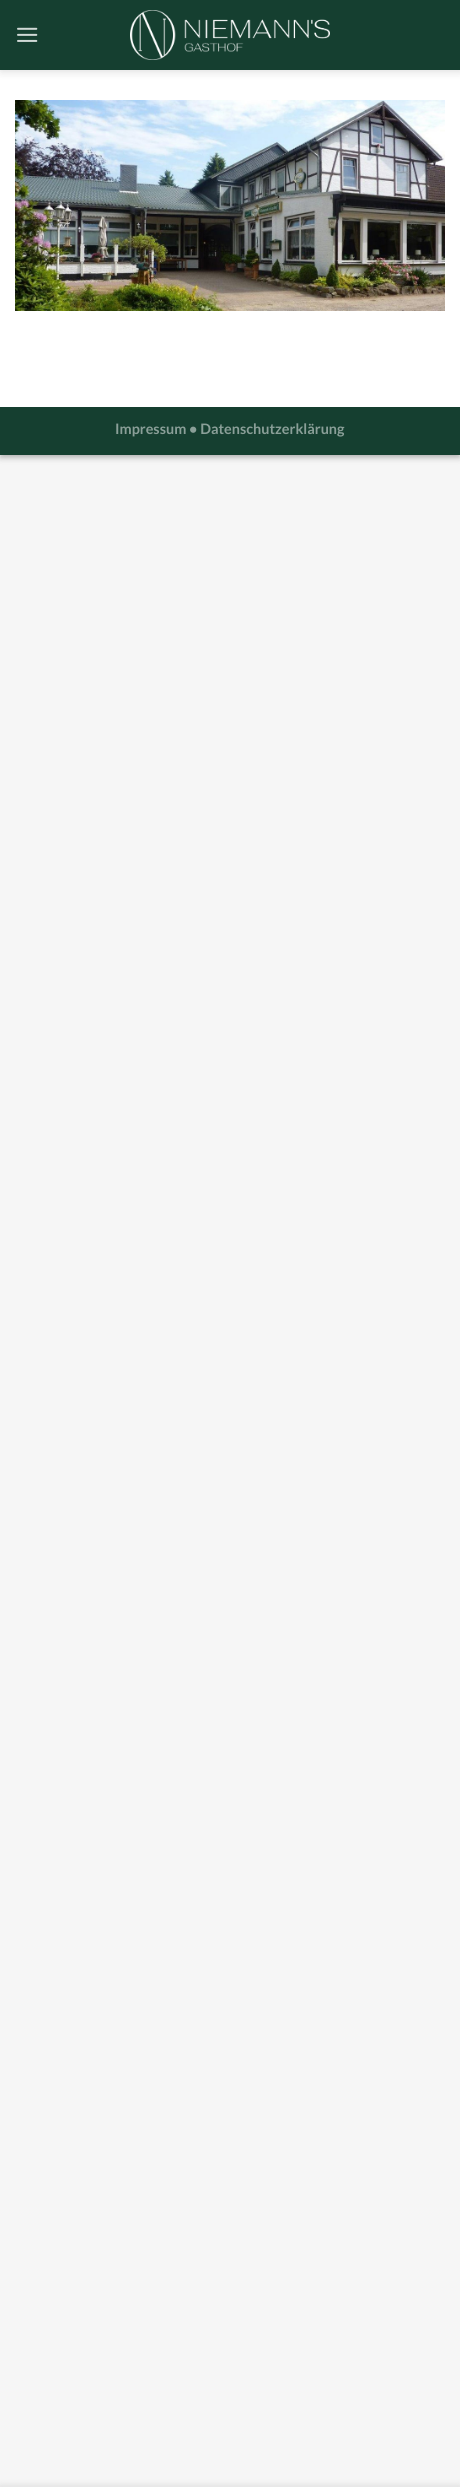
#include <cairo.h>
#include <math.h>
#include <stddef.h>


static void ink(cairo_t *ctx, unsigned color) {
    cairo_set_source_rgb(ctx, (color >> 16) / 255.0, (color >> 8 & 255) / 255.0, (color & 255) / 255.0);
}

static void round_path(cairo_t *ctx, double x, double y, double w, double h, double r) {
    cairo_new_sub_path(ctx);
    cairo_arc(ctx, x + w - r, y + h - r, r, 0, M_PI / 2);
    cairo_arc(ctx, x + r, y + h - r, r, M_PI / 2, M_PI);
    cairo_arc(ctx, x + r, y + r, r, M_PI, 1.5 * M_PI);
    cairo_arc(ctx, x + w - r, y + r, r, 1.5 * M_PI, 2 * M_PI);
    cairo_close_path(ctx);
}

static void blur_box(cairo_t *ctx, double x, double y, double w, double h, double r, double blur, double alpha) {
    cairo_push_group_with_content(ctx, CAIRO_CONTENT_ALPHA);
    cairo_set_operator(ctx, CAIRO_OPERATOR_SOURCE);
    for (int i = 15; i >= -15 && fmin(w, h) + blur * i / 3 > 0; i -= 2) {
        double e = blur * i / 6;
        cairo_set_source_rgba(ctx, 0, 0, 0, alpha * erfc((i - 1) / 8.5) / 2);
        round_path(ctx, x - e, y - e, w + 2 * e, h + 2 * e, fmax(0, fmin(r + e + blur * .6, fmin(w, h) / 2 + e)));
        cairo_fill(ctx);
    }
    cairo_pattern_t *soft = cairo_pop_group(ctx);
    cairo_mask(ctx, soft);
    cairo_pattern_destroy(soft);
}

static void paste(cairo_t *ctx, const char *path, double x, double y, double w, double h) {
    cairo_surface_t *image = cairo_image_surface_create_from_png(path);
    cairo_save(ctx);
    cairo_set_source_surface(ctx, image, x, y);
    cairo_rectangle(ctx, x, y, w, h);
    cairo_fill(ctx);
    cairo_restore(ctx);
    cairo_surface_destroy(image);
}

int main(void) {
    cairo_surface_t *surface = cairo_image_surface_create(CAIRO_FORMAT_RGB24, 460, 2487);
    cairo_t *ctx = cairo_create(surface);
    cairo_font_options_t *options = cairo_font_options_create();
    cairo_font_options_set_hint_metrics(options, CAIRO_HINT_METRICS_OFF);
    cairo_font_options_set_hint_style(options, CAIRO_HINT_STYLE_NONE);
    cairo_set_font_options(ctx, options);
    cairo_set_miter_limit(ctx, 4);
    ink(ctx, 0xF6F6F6);
    cairo_paint(ctx);
    ink(ctx, 0x000000);
    blur_box(ctx, 0, 3, 460, 455, 0, 3, 0.23);
    blur_box(ctx, 4, 7, 452, 447, 0, 3, 0.16);
    ink(ctx, 0xFFFFFF);
    cairo_rectangle(ctx, 0, 70, 460, 337);
    cairo_fill(ctx);
    ink(ctx, 0x000000);
    blur_box(ctx, 1, 1, 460, 70, 0, 5, 0.15);
    ink(ctx, 0x153F30);
    cairo_rectangle(ctx, 0, 0, 460, 70);
    cairo_fill(ctx);
    paste(ctx, "media/1.png", 17, 27, 21, 15);
    paste(ctx, "media/2.png", 130, 10, 200, 50);
    paste(ctx, "media/3.png", 15, 100, 430, 211);
    cairo_rectangle(ctx, 0, 407, 460, 48);
    cairo_fill(ctx);
    cairo_select_font_face(ctx, "Lato", CAIRO_FONT_SLANT_NORMAL, CAIRO_FONT_WEIGHT_BOLD);
    cairo_set_font_size(ctx, 14.4);
    ink(ctx, 0x8A9F98);
    cairo_move_to(ctx, 115, 434);
    cairo_show_text(ctx, "Impressum • Datenschutzerklärung");
    ink(ctx, 0x000000);
    blur_box(ctx, 0, 2487, 460, 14, 0, 4.5, 0.14);
    cairo_surface_write_to_png(surface, "image.png");
    cairo_font_options_destroy(options);
    cairo_destroy(ctx);
    cairo_surface_destroy(surface);
    return 0;
}
